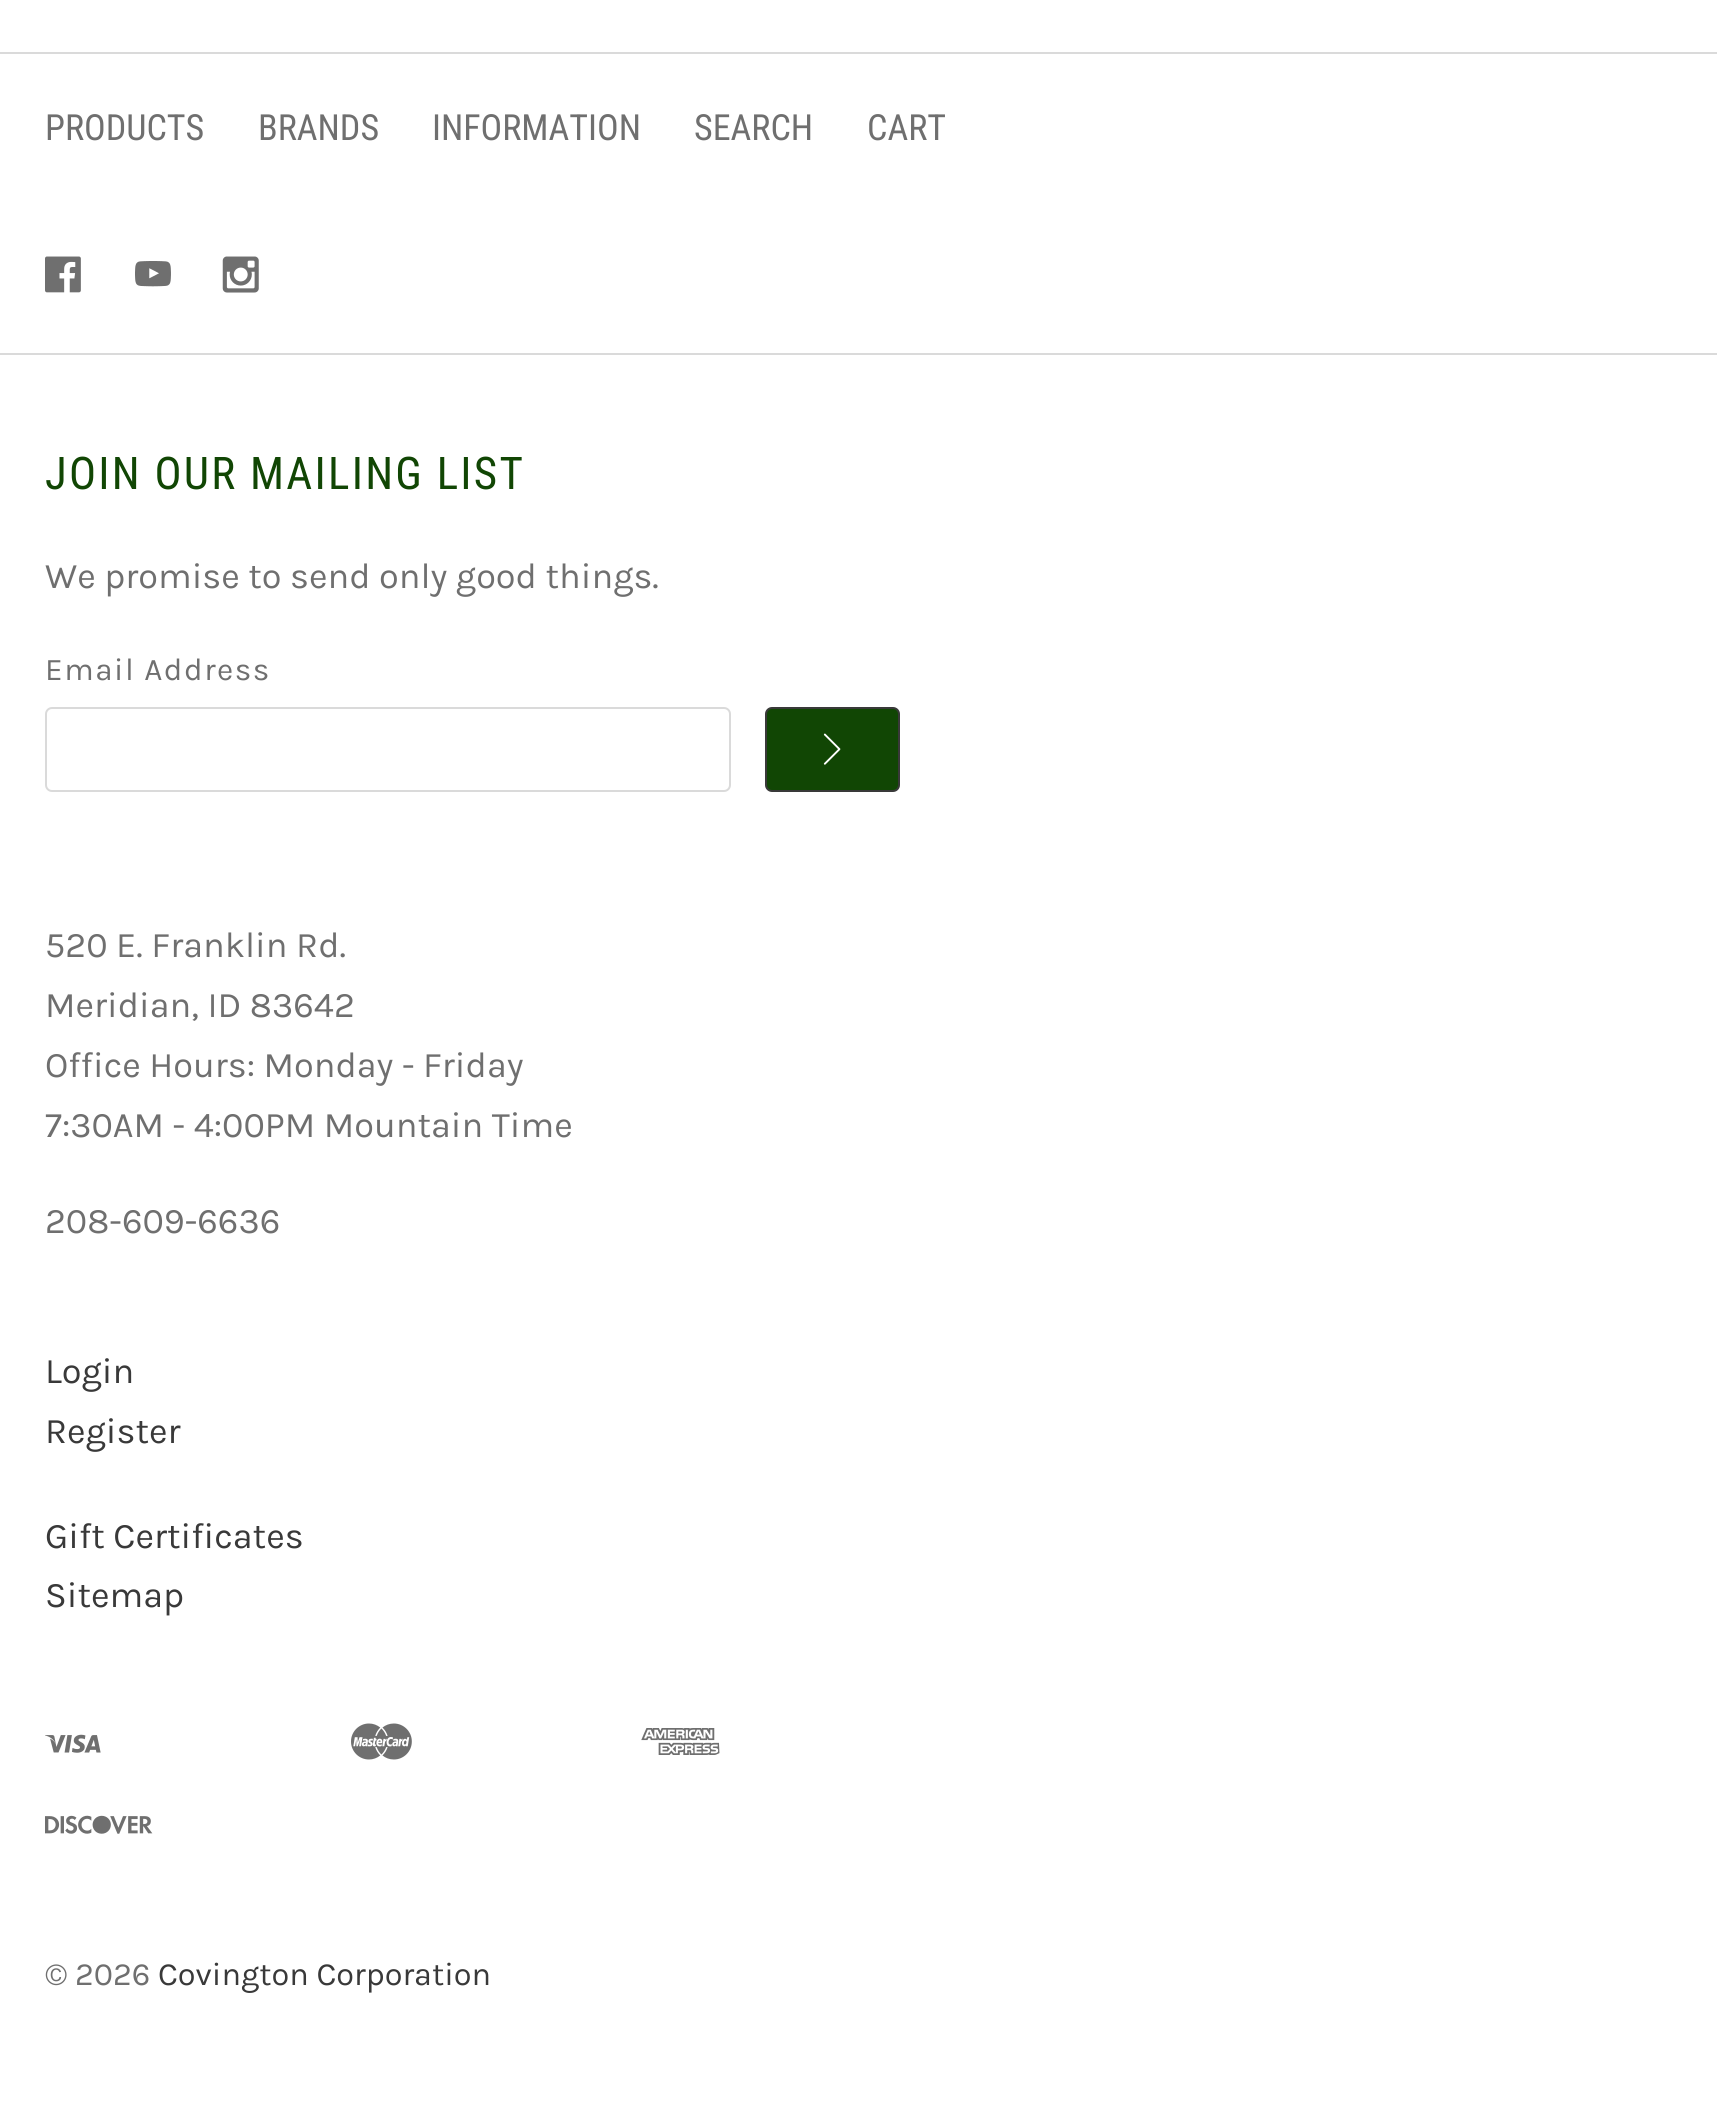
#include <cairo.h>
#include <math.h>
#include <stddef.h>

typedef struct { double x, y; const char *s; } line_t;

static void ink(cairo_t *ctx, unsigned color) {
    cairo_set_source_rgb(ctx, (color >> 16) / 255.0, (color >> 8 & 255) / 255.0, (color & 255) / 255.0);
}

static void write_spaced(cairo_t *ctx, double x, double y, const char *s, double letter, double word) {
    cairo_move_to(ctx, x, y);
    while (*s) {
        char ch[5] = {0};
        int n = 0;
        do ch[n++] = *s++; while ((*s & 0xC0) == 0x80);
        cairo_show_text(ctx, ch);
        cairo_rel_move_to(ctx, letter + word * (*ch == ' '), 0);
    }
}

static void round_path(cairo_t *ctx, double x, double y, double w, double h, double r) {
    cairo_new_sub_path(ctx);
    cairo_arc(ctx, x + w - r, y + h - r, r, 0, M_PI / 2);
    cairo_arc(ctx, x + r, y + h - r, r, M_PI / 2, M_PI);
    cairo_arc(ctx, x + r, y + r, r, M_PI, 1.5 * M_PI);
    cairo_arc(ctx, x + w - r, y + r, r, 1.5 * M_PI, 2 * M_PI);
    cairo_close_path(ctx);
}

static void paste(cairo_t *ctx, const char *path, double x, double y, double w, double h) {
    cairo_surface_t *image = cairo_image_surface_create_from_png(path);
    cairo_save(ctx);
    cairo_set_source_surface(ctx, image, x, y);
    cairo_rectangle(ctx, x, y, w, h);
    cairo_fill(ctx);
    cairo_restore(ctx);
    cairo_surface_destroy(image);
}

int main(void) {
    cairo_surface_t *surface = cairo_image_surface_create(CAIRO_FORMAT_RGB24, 1717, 2125);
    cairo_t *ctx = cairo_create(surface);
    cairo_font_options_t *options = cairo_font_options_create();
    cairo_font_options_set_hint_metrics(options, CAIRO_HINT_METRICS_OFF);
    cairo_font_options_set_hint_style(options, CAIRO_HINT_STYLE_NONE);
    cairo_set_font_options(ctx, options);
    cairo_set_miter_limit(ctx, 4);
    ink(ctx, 0xFFFFFF);
    cairo_paint(ctx);
    ink(ctx, 0xDADADA);
    cairo_rectangle(ctx, 0, 52, 1717, 2);
    cairo_fill(ctx);
    cairo_rectangle(ctx, 0, 353, 1717, 2);
    cairo_fill(ctx);
    cairo_select_font_face(ctx, "Roboto Condensed", CAIRO_FONT_SLANT_NORMAL, CAIRO_FONT_WEIGHT_NORMAL);
    cairo_set_font_size(ctx, 36);
    ink(ctx, 0x6F6F6F);
    {
        static const line_t items[] = {
            {45, 140, "PRODUCTS"},
            {258, 140, "BRANDS"},
            {432, 140, "INFORMATION"},
            {694, 140, "SEARCH"},
            {867, 140, "CART"},
        };
        for (size_t i = 0; i < sizeof items / sizeof *items; i++) {
            cairo_move_to(ctx, items[i].x, items[i].y);
            cairo_show_text(ctx, items[i].s);
        }
    }
    paste(ctx, "media/1.png", 45, 256, 36, 37);
    paste(ctx, "media/2.png", 135, 261, 36, 26);
    paste(ctx, "media/3.png", 222, 256, 37, 37);
    cairo_set_font_size(ctx, 45);
    ink(ctx, 0x114604);
    write_spaced(ctx, 45, 489, "JOIN OUR MAILING LIST", 2.25, 0);
    cairo_select_font_face(ctx, "Karla", CAIRO_FONT_SLANT_NORMAL, CAIRO_FONT_WEIGHT_NORMAL);
    cairo_set_font_size(ctx, 36);
    ink(ctx, 0x6F6F6F);
    cairo_move_to(ctx, 45, 588);
    cairo_show_text(ctx, "We promise to send only good things.");
    cairo_set_font_size(ctx, 31.5);
    write_spaced(ctx, 45, 680, "Email Address", 1.5, 0);
    round_path(ctx, 46, 708, 684, 83, 6);
    ink(ctx, 0xDADADA);
    cairo_stroke(ctx);
    ink(ctx, 0x114604);
    round_path(ctx, 766, 708, 133, 83, 6);
    cairo_fill_preserve(ctx);
    ink(ctx, 0x393939);
    cairo_stroke(ctx);
    paste(ctx, "media/4.png", 823, 733, 18, 32);
    cairo_set_font_size(ctx, 36);
    ink(ctx, 0x6F6F6F);
    {
        static const line_t items[] = {
            {45, 957, "520 E. Franklin Rd."},
            {45, 1017, "Meridian, ID 83642"},
            {45, 1077, "Office Hours: Monday - Friday"},
            {45, 1137, "7:30AM - 4:00PM Mountain Time"},
            {45, 1233, "208-609-6636"},
        };
        for (size_t i = 0; i < sizeof items / sizeof *items; i++) {
            cairo_move_to(ctx, items[i].x, items[i].y);
            cairo_show_text(ctx, items[i].s);
        }
    }
    ink(ctx, 0x393939);
    {
        static const line_t items[] = {
            {45, 1383, "Login"},
            {45, 1443, "Register"},
            {45, 1548, "Gift Certificates"},
            {45, 1607, "Sitemap"},
        };
        for (size_t i = 0; i < sizeof items / sizeof *items; i++) {
            cairo_move_to(ctx, items[i].x, items[i].y);
            cairo_show_text(ctx, items[i].s);
        }
    }
    paste(ctx, "media/5.png", 45, 1734, 56, 19);
    paste(ctx, "media/6.png", 351, 1723, 61, 37);
    paste(ctx, "media/7.png", 641, 1728, 79, 27);
    paste(ctx, "media/8.png", 45, 1815, 108, 19);
    cairo_set_font_size(ctx, 32.4);
    ink(ctx, 0x6F6F6F);
    cairo_move_to(ctx, 45, 1985);
    cairo_show_text(ctx, "© 2026");
    ink(ctx, 0x393939);
    cairo_move_to(ctx, 158, 1985);
    cairo_show_text(ctx, "Covington Corporation");
    cairo_surface_write_to_png(surface, "image.png");
    cairo_font_options_destroy(options);
    cairo_destroy(ctx);
    cairo_surface_destroy(surface);
    return 0;
}
